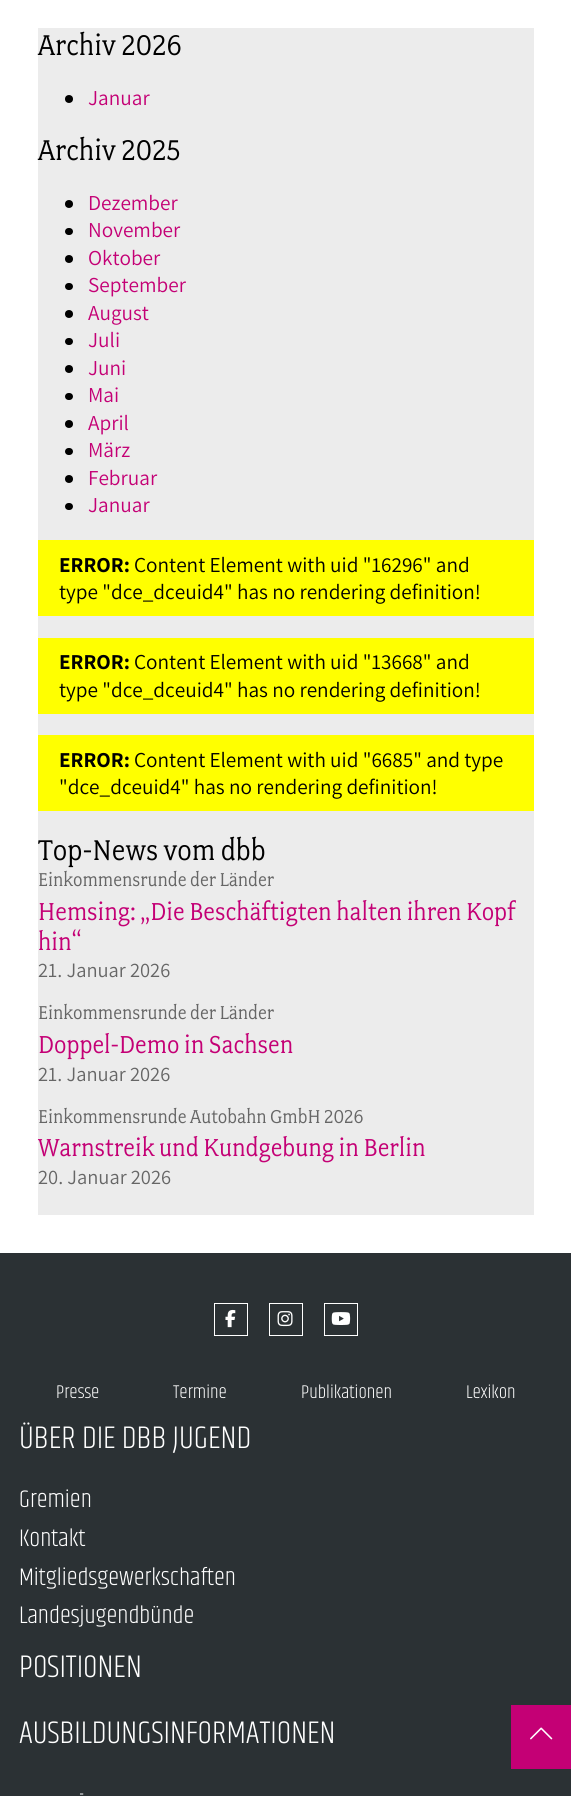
#include <cairo.h>
#include <math.h>
#include <stddef.h>

typedef struct { double x, y; const char *s; } line_t;

static void ink(cairo_t *ctx, unsigned color) {
    cairo_set_source_rgb(ctx, (color >> 16) / 255.0, (color >> 8 & 255) / 255.0, (color & 255) / 255.0);
}

static void round_path(cairo_t *ctx, double x, double y, double w, double h, double r) {
    cairo_new_sub_path(ctx);
    cairo_arc(ctx, x + w - r, y + h - r, r, 0, M_PI / 2);
    cairo_arc(ctx, x + r, y + h - r, r, M_PI / 2, M_PI);
    cairo_arc(ctx, x + r, y + r, r, M_PI, 1.5 * M_PI);
    cairo_arc(ctx, x + w - r, y + r, r, 1.5 * M_PI, 2 * M_PI);
    cairo_close_path(ctx);
}

static void paste(cairo_t *ctx, const char *path, double x, double y, double w, double h) {
    cairo_surface_t *image = cairo_image_surface_create_from_png(path);
    cairo_save(ctx);
    cairo_set_source_surface(ctx, image, x, y);
    cairo_rectangle(ctx, x, y, w, h);
    cairo_fill(ctx);
    cairo_restore(ctx);
    cairo_surface_destroy(image);
}

int main(void) {
    cairo_surface_t *surface = cairo_image_surface_create(CAIRO_FORMAT_RGB24, 571, 1796);
    cairo_t *ctx = cairo_create(surface);
    cairo_font_options_t *options = cairo_font_options_create();
    cairo_font_options_set_hint_metrics(options, CAIRO_HINT_METRICS_OFF);
    cairo_font_options_set_hint_style(options, CAIRO_HINT_STYLE_NONE);
    cairo_set_font_options(ctx, options);
    cairo_set_miter_limit(ctx, 4);
    ink(ctx, 0xFFFFFF);
    cairo_paint(ctx);
    ink(ctx, 0xECECEC);
    cairo_rectangle(ctx, 38, 28, 496, 1187);
    cairo_fill(ctx);
    cairo_select_font_face(ctx, "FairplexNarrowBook", CAIRO_FONT_SLANT_NORMAL, CAIRO_FONT_WEIGHT_NORMAL);
    cairo_set_font_size(ctx, 32);
    ink(ctx, 0x000000);
    cairo_move_to(ctx, 38, 55);
    cairo_show_text(ctx, "Archiv 2026");
    cairo_new_path(ctx);
    cairo_arc(ctx, 69, 99, 4, 0, 2 * M_PI);
    cairo_fill(ctx);
    cairo_select_font_face(ctx, "Assistant", CAIRO_FONT_SLANT_NORMAL, CAIRO_FONT_WEIGHT_NORMAL);
    cairo_set_font_size(ctx, 21.25);
    ink(ctx, 0xC40075);
    cairo_move_to(ctx, 88, 105);
    cairo_show_text(ctx, "Januar");
    cairo_select_font_face(ctx, "FairplexNarrowBook", CAIRO_FONT_SLANT_NORMAL, CAIRO_FONT_WEIGHT_NORMAL);
    cairo_set_font_size(ctx, 32);
    ink(ctx, 0x000000);
    cairo_move_to(ctx, 38, 160);
    cairo_show_text(ctx, "Archiv 2025");
    cairo_new_path(ctx);
    cairo_arc(ctx, 69, 204, 4, 0, 2 * M_PI);
    cairo_fill(ctx);
    cairo_select_font_face(ctx, "Assistant", CAIRO_FONT_SLANT_NORMAL, CAIRO_FONT_WEIGHT_NORMAL);
    cairo_set_font_size(ctx, 21.25);
    ink(ctx, 0xC40075);
    cairo_move_to(ctx, 88, 210);
    cairo_show_text(ctx, "Dezember");
    ink(ctx, 0x000000);
    round_path(ctx, 65, 228, 8, 7, 3.5);
    cairo_fill(ctx);
    ink(ctx, 0xC40075);
    cairo_move_to(ctx, 88, 237);
    cairo_show_text(ctx, "November");
    ink(ctx, 0x000000);
    cairo_new_path(ctx);
    cairo_arc(ctx, 69, 259, 4, 0, 2 * M_PI);
    cairo_fill(ctx);
    ink(ctx, 0xC40075);
    cairo_move_to(ctx, 88, 265);
    cairo_show_text(ctx, "Oktober");
    ink(ctx, 0x000000);
    round_path(ctx, 65, 283, 8, 7, 3.5);
    cairo_fill(ctx);
    ink(ctx, 0xC40075);
    cairo_move_to(ctx, 88, 292);
    cairo_show_text(ctx, "September");
    ink(ctx, 0x000000);
    cairo_new_path(ctx);
    cairo_arc(ctx, 69, 314, 4, 0, 2 * M_PI);
    cairo_fill(ctx);
    ink(ctx, 0xC40075);
    cairo_move_to(ctx, 88, 320);
    cairo_show_text(ctx, "August");
    ink(ctx, 0x000000);
    round_path(ctx, 65, 338, 8, 7, 3.5);
    cairo_fill(ctx);
    ink(ctx, 0xC40075);
    cairo_move_to(ctx, 88, 347);
    cairo_show_text(ctx, "Juli");
    ink(ctx, 0x000000);
    cairo_new_path(ctx);
    cairo_arc(ctx, 69, 369, 4, 0, 2 * M_PI);
    cairo_fill(ctx);
    ink(ctx, 0xC40075);
    cairo_move_to(ctx, 88, 375);
    cairo_show_text(ctx, "Juni");
    ink(ctx, 0x000000);
    round_path(ctx, 65, 393, 8, 7, 3.5);
    cairo_fill(ctx);
    ink(ctx, 0xC40075);
    cairo_move_to(ctx, 88, 402);
    cairo_show_text(ctx, "Mai");
    ink(ctx, 0x000000);
    cairo_new_path(ctx);
    cairo_arc(ctx, 69, 424, 4, 0, 2 * M_PI);
    cairo_fill(ctx);
    ink(ctx, 0xC40075);
    cairo_move_to(ctx, 88, 430);
    cairo_show_text(ctx, "April");
    ink(ctx, 0x000000);
    round_path(ctx, 65, 448, 8, 7, 3.5);
    cairo_fill(ctx);
    ink(ctx, 0xC40075);
    cairo_move_to(ctx, 88, 457);
    cairo_show_text(ctx, "März");
    ink(ctx, 0x000000);
    cairo_new_path(ctx);
    cairo_arc(ctx, 69, 479, 4, 0, 2 * M_PI);
    cairo_fill(ctx);
    ink(ctx, 0xC40075);
    cairo_move_to(ctx, 88, 485);
    cairo_show_text(ctx, "Februar");
    ink(ctx, 0x000000);
    round_path(ctx, 65, 503, 8, 7, 3.5);
    cairo_fill(ctx);
    ink(ctx, 0xC40075);
    cairo_move_to(ctx, 88, 512);
    cairo_show_text(ctx, "Januar");
    ink(ctx, 0xFFFF00);
    cairo_rectangle(ctx, 38, 540, 496, 76);
    cairo_fill(ctx);
    cairo_select_font_face(ctx, "Assistant", CAIRO_FONT_SLANT_NORMAL, CAIRO_FONT_WEIGHT_BOLD);
    ink(ctx, 0x000000);
    cairo_move_to(ctx, 59, 572);
    cairo_show_text(ctx, "ERROR:");
    cairo_select_font_face(ctx, "Assistant", CAIRO_FONT_SLANT_NORMAL, CAIRO_FONT_WEIGHT_NORMAL);
    cairo_move_to(ctx, 134, 572);
    cairo_show_text(ctx, "Content Element with uid \"16296\" and");
    cairo_move_to(ctx, 59, 599);
    cairo_show_text(ctx, "type \"dce_dceuid4\" has no rendering definition!");
    ink(ctx, 0xFFFF00);
    cairo_rectangle(ctx, 38, 638, 496, 76);
    cairo_fill(ctx);
    cairo_select_font_face(ctx, "Assistant", CAIRO_FONT_SLANT_NORMAL, CAIRO_FONT_WEIGHT_BOLD);
    ink(ctx, 0x000000);
    cairo_move_to(ctx, 59, 669);
    cairo_show_text(ctx, "ERROR:");
    cairo_select_font_face(ctx, "Assistant", CAIRO_FONT_SLANT_NORMAL, CAIRO_FONT_WEIGHT_NORMAL);
    cairo_move_to(ctx, 134, 669);
    cairo_show_text(ctx, "Content Element with uid \"13668\" and");
    cairo_move_to(ctx, 59, 697);
    cairo_show_text(ctx, "type \"dce_dceuid4\" has no rendering definition!");
    ink(ctx, 0xFFFF00);
    cairo_rectangle(ctx, 38, 735, 496, 76);
    cairo_fill(ctx);
    cairo_select_font_face(ctx, "Assistant", CAIRO_FONT_SLANT_NORMAL, CAIRO_FONT_WEIGHT_BOLD);
    ink(ctx, 0x000000);
    cairo_move_to(ctx, 59, 767);
    cairo_show_text(ctx, "ERROR:");
    cairo_select_font_face(ctx, "Assistant", CAIRO_FONT_SLANT_NORMAL, CAIRO_FONT_WEIGHT_NORMAL);
    cairo_move_to(ctx, 134, 767);
    cairo_show_text(ctx, "Content Element with uid \"6685\" and type");
    cairo_move_to(ctx, 59, 794);
    cairo_show_text(ctx, "\"dce_dceuid4\" has no rendering definition!");
    cairo_select_font_face(ctx, "FairplexNarrowBook", CAIRO_FONT_SLANT_NORMAL, CAIRO_FONT_WEIGHT_NORMAL);
    cairo_set_font_size(ctx, 32);
    cairo_move_to(ctx, 38, 860);
    cairo_show_text(ctx, "Top-News vom dbb");
    cairo_set_font_size(ctx, 20.9);
    ink(ctx, 0x666666);
    cairo_move_to(ctx, 38, 886);
    cairo_show_text(ctx, "Einkommensrunde der Länder");
    cairo_set_font_size(ctx, 27.5);
    ink(ctx, 0xC40075);
    cairo_move_to(ctx, 38, 920);
    cairo_show_text(ctx, "Hemsing: „Die Beschäftigten halten ihren Kopf");
    cairo_move_to(ctx, 38, 950);
    cairo_show_text(ctx, "hin“");
    cairo_select_font_face(ctx, "Assistant", CAIRO_FONT_SLANT_NORMAL, CAIRO_FONT_WEIGHT_NORMAL);
    cairo_set_font_size(ctx, 20.5);
    ink(ctx, 0x666666);
    cairo_move_to(ctx, 38, 977);
    cairo_show_text(ctx, "21. Januar 2026");
    cairo_select_font_face(ctx, "FairplexNarrowBook", CAIRO_FONT_SLANT_NORMAL, CAIRO_FONT_WEIGHT_NORMAL);
    cairo_set_font_size(ctx, 20.9);
    cairo_move_to(ctx, 38, 1019);
    cairo_show_text(ctx, "Einkommensrunde der Länder");
    cairo_set_font_size(ctx, 27.5);
    ink(ctx, 0xC40075);
    cairo_move_to(ctx, 38, 1053);
    cairo_show_text(ctx, "Doppel-Demo in Sachsen");
    cairo_select_font_face(ctx, "Assistant", CAIRO_FONT_SLANT_NORMAL, CAIRO_FONT_WEIGHT_NORMAL);
    cairo_set_font_size(ctx, 20.5);
    ink(ctx, 0x666666);
    cairo_move_to(ctx, 38, 1081);
    cairo_show_text(ctx, "21. Januar 2026");
    cairo_select_font_face(ctx, "FairplexNarrowBook", CAIRO_FONT_SLANT_NORMAL, CAIRO_FONT_WEIGHT_NORMAL);
    cairo_set_font_size(ctx, 20.9);
    cairo_move_to(ctx, 38, 1123);
    cairo_show_text(ctx, "Einkommensrunde Autobahn GmbH 2026");
    cairo_set_font_size(ctx, 27.5);
    ink(ctx, 0xC40075);
    cairo_move_to(ctx, 38, 1156);
    cairo_show_text(ctx, "Warnstreik und Kundgebung in Berlin");
    cairo_select_font_face(ctx, "Assistant", CAIRO_FONT_SLANT_NORMAL, CAIRO_FONT_WEIGHT_NORMAL);
    cairo_set_font_size(ctx, 20.5);
    ink(ctx, 0x666666);
    cairo_move_to(ctx, 38, 1184);
    cairo_show_text(ctx, "20. Januar 2026");
    ink(ctx, 0x2B3134);
    cairo_rectangle(ctx, 0, 1253, 571, 543);
    cairo_fill(ctx);
    cairo_rectangle(ctx, 214.5, 1303.5, 33, 32);
    ink(ctx, 0xFFFFFF);
    cairo_set_line_width(ctx, 1);
    cairo_stroke(ctx);
    paste(ctx, "media/1.png", 225, 1309, 11, 19);
    cairo_rectangle(ctx, 269.5, 1303.5, 33, 32);
    cairo_stroke(ctx);
    paste(ctx, "media/2.png", 277, 1311, 16, 16);
    cairo_rectangle(ctx, 324.5, 1303.5, 33, 32);
    cairo_stroke(ctx);
    paste(ctx, "media/3.png", 331, 1312, 20, 13);
    cairo_select_font_face(ctx, "Khand Light", CAIRO_FONT_SLANT_NORMAL, CAIRO_FONT_WEIGHT_NORMAL);
    cairo_set_font_size(ctx, 19);
    {
        static const line_t items[] = {
            {56, 1398, "Presse"},
            {173, 1398, "Termine"},
            {301, 1398, "Publikationen"},
            {466, 1398, "Lexikon"},
        };
        for (size_t i = 0; i < sizeof items / sizeof *items; i++) {
            cairo_move_to(ctx, items[i].x, items[i].y);
            cairo_show_text(ctx, items[i].s);
        }
    }
    cairo_set_font_size(ctx, 32.25);
    cairo_move_to(ctx, 19, 1448);
    cairo_show_text(ctx, "ÜBER DIE DBB JUGEND");
    cairo_set_font_size(ctx, 24.75);
    {
        static const line_t items[] = {
            {19, 1507, "Gremien"},
            {19, 1546, "Kontakt"},
            {19, 1585, "Mitgliedsgewerkschaften"},
            {19, 1623, "Landesjugendbünde"},
        };
        for (size_t i = 0; i < sizeof items / sizeof *items; i++) {
            cairo_move_to(ctx, items[i].x, items[i].y);
            cairo_show_text(ctx, items[i].s);
        }
    }
    cairo_set_font_size(ctx, 32.25);
    cairo_move_to(ctx, 19, 1677);
    cairo_show_text(ctx, "POSITIONEN");
    cairo_move_to(ctx, 19, 1743);
    cairo_show_text(ctx, "AUSBILDUNGSINFORMATIONEN");
    cairo_set_font_size(ctx, 24.75);
    cairo_move_to(ctx, 79, 1802);
    cairo_show_text(ctx, "-");
    ink(ctx, 0xC40075);
    cairo_rectangle(ctx, 511, 1705, 60, 64);
    cairo_fill(ctx);
    paste(ctx, "media/4.png", 530, 1727, 23, 13);
    cairo_surface_write_to_png(surface, "image.png");
    cairo_font_options_destroy(options);
    cairo_destroy(ctx);
    cairo_surface_destroy(surface);
    return 0;
}
